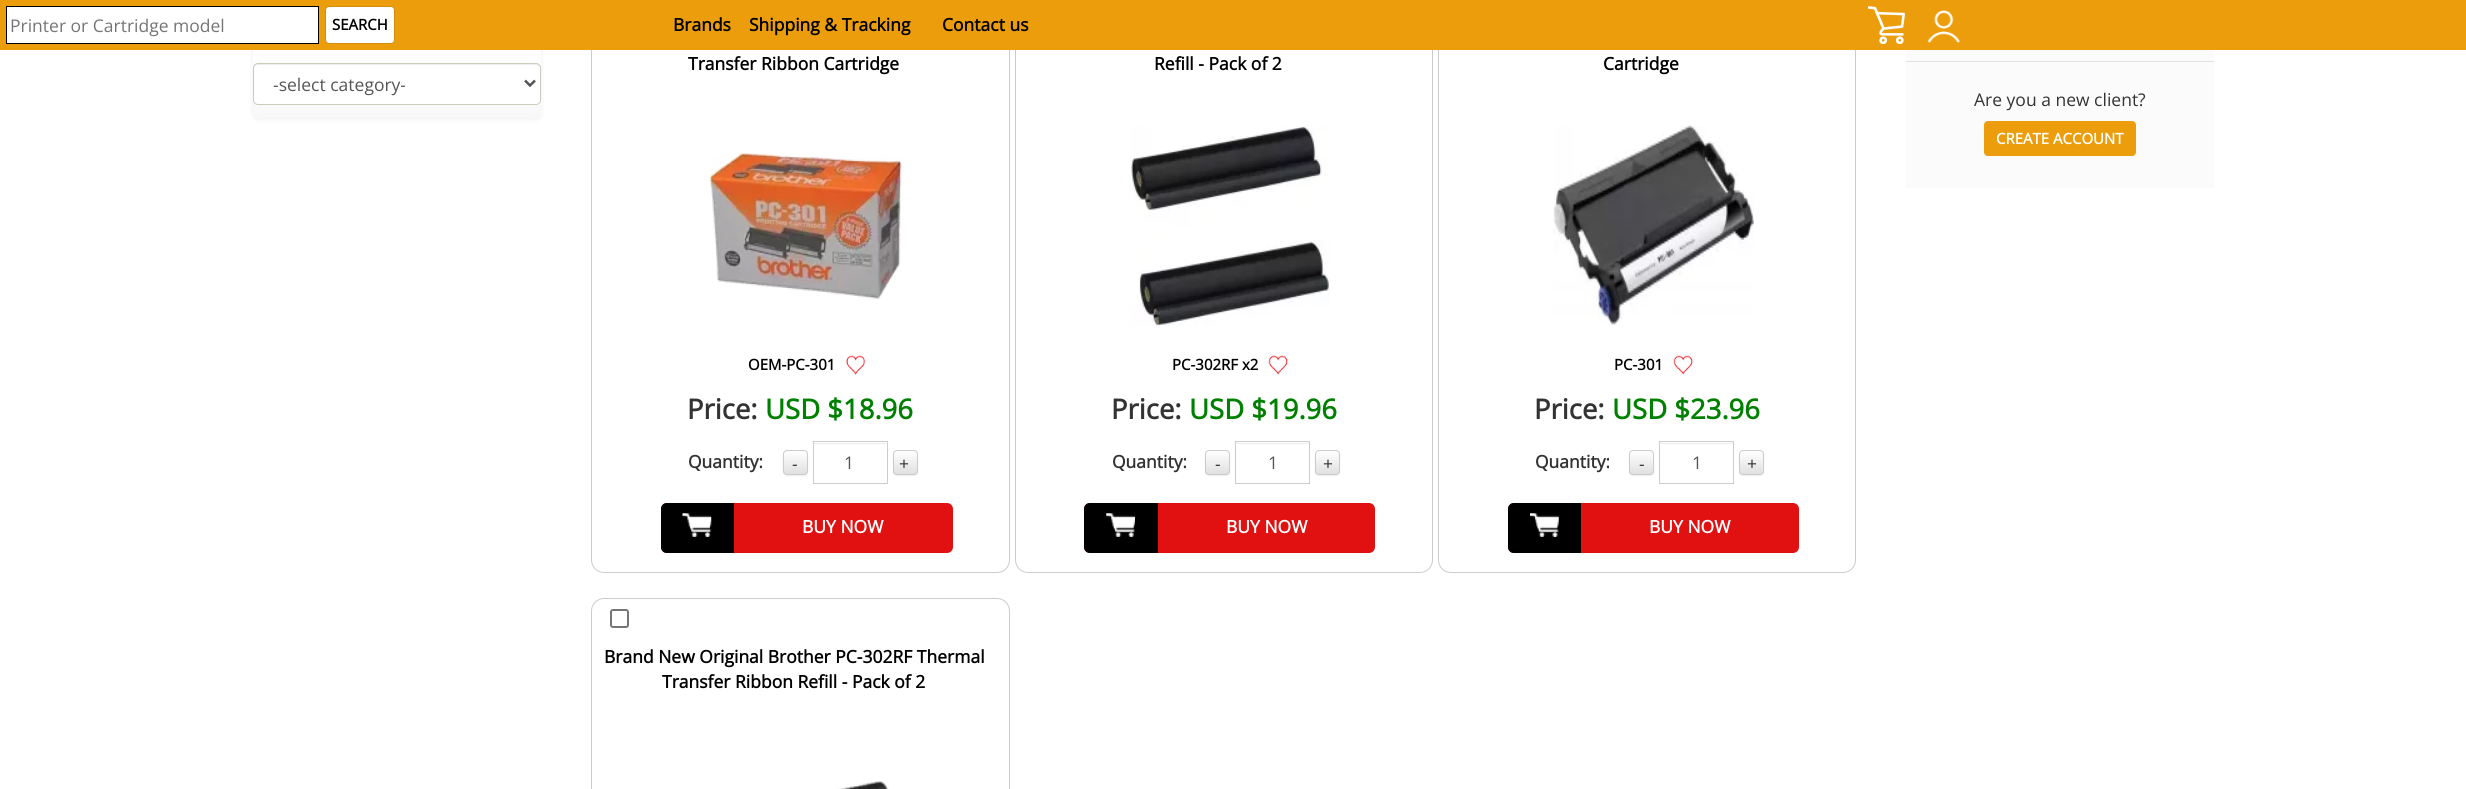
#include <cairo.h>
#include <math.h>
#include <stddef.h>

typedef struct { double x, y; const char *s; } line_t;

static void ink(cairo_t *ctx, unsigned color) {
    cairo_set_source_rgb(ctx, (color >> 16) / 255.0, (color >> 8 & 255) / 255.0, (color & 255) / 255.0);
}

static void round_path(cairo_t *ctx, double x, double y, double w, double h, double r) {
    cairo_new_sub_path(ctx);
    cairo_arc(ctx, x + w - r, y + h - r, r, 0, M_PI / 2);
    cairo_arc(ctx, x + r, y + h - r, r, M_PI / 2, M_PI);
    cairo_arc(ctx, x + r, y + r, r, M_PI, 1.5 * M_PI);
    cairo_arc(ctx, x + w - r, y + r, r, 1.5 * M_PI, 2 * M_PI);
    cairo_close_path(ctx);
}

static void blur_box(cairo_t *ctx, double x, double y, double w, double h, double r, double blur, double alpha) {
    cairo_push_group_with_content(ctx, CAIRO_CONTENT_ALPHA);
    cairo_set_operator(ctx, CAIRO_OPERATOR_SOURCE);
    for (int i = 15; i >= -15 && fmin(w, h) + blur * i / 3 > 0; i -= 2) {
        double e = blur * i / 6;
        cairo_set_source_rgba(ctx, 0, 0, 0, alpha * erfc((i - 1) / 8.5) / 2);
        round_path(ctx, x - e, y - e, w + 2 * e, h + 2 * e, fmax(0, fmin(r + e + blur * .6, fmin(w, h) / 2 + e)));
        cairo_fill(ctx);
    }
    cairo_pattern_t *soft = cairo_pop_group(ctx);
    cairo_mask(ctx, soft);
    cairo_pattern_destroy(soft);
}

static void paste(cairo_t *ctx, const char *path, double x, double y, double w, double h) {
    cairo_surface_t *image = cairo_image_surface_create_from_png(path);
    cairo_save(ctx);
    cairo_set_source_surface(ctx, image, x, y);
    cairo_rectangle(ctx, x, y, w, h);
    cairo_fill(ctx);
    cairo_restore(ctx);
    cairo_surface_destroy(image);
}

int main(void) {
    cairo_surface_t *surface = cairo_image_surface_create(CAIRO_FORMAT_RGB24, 2466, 789);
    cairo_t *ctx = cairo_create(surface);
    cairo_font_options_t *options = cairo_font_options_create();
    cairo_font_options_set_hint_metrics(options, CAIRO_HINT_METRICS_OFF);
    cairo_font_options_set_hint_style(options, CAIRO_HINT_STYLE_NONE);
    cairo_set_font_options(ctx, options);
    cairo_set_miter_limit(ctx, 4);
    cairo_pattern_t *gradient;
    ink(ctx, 0xFFFFFF);
    cairo_paint(ctx);
    ink(ctx, 0x000000);
    blur_box(ctx, 253, 39, 288, 80, 5, 3, 0.07);
    gradient = cairo_pattern_create_linear(397, 37, 397, 118);
    cairo_pattern_add_color_stop_rgba(gradient, 0, 1, 1, 1, 1);
    cairo_pattern_add_color_stop_rgba(gradient, 1, 0.973, 0.973, 0.973, 1);
    cairo_set_source(ctx, gradient);
    cairo_pattern_destroy(gradient);
    round_path(ctx, 253, 38, 288, 80, 5);
    cairo_fill(ctx);
    round_path(ctx, 591.5, -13.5, 418, 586, 12.5);
    ink(ctx, 0xCCCCCC);
    cairo_set_line_width(ctx, 1);
    cairo_stroke(ctx);
    round_path(ctx, 1015.5, -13.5, 417, 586, 12.5);
    cairo_stroke(ctx);
    round_path(ctx, 1438.5, -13.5, 417, 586, 12.5);
    cairo_stroke(ctx);
    ink(ctx, 0xEC9D0C);
    cairo_rectangle(ctx, 0, 0, 2466, 50);
    cairo_fill(ctx);
    ink(ctx, 0xFFFFFF);
    cairo_rectangle(ctx, 6.5, 6.5, 312, 37);
    cairo_fill_preserve(ctx);
    ink(ctx, 0x000000);
    cairo_stroke(ctx);
    cairo_select_font_face(ctx, "Open Sans", CAIRO_FONT_SLANT_NORMAL, CAIRO_FONT_WEIGHT_NORMAL);
    cairo_set_font_size(ctx, 17.5);
    ink(ctx, 0x757575);
    cairo_move_to(ctx, 10, 32);
    cairo_show_text(ctx, "Printer or Cartridge model");
    ink(ctx, 0xFFFFFF);
    round_path(ctx, 325.5, 6.5, 69, 37, 3.5);
    cairo_fill_preserve(ctx);
    ink(ctx, 0xD48D0A);
    cairo_stroke(ctx);
    cairo_select_font_face(ctx, "Open Sans", CAIRO_FONT_SLANT_NORMAL, CAIRO_FONT_WEIGHT_BOLD);
    cairo_set_font_size(ctx, 15);
    ink(ctx, 0x000000);
    cairo_move_to(ctx, 332, 30);
    cairo_show_text(ctx, "SEARCH");
    cairo_set_font_size(ctx, 17.5);
    {
        static const line_t items[] = {
            {673, 31, "Brands"},
            {749, 31, "Shipping & Tracking"},
            {942, 31, "Contact us"},
        };
        for (size_t i = 0; i < sizeof items / sizeof *items; i++) {
            cairo_move_to(ctx, items[i].x, items[i].y);
            cairo_show_text(ctx, items[i].s);
        }
    }
    paste(ctx, "media/1.png", 1868, 6, 37, 38);
    paste(ctx, "media/2.png", 1927, 10, 33, 33);
    ink(ctx, 0xFFFFFF);
    round_path(ctx, 253, 63, 288, 42, 5);
    cairo_fill(ctx);
    ink(ctx, 0xECECEC);
    cairo_new_path(ctx);
    cairo_move_to(ctx, 258, 65);
    cairo_line_to(ctx, 536, 65);
    cairo_curve_to(ctx, 538, 65, 540, 67, 540, 69);
    cairo_curve_to(ctx, 540, 66, 539, 64, 536, 64);
    cairo_line_to(ctx, 258, 64);
    cairo_curve_to(ctx, 255, 64, 254, 66, 254, 69);
    cairo_curve_to(ctx, 254, 67, 255, 65, 258, 65);
    cairo_close_path(ctx);
    cairo_fill(ctx);
    round_path(ctx, 253.5, 63.5, 287, 41, 4.5);
    ink(ctx, 0xCCCCBB);
    cairo_stroke(ctx);
    cairo_new_path(ctx);
    cairo_move_to(ctx, 525, 80.5);
    cairo_line_to(ctx, 530, 85.5);
    cairo_line_to(ctx, 535, 80.5);
    ink(ctx, 0x555555);
    cairo_set_line_width(ctx, 2.5);
    cairo_stroke(ctx);
    cairo_select_font_face(ctx, "Open Sans", CAIRO_FONT_SLANT_NORMAL, CAIRO_FONT_WEIGHT_NORMAL);
    cairo_move_to(ctx, 273, 91);
    cairo_show_text(ctx, "-select category-");
    cairo_select_font_face(ctx, "Open Sans", CAIRO_FONT_SLANT_NORMAL, CAIRO_FONT_WEIGHT_BOLD);
    ink(ctx, 0x000000);
    cairo_move_to(ctx, 688, 70);
    cairo_show_text(ctx, "Transfer Ribbon Cartridge");
    paste(ctx, "media/3.png", 709, 153, 193, 147);
    cairo_set_font_size(ctx, 15);
    cairo_move_to(ctx, 748, 370);
    cairo_show_text(ctx, "OEM-PC-301");
    paste(ctx, "media/4.png", 846, 355, 19, 20);
    cairo_set_font_size(ctx, 27.5);
    ink(ctx, 0x333333);
    cairo_move_to(ctx, 687, 419);
    cairo_show_text(ctx, "Price:");
    ink(ctx, 0x008000);
    cairo_move_to(ctx, 765, 419);
    cairo_show_text(ctx, "USD $18.96");
    cairo_set_font_size(ctx, 17.5);
    ink(ctx, 0x333333);
    cairo_move_to(ctx, 688, 468);
    cairo_show_text(ctx, "Quantity:");
    ink(ctx, 0x000000);
    blur_box(ctx, 783, 451, 25, 25, 4, 0.5, 0.07);
    cairo_save(ctx);
    round_path(ctx, 783, 450, 25, 25, 4);
    cairo_clip(ctx);
    gradient = cairo_pattern_create_linear(795, 451, 795, 474);
    cairo_pattern_add_color_stop_rgba(gradient, 0, 1, 1, 1, 1);
    cairo_pattern_add_color_stop_rgba(gradient, 1, 0.878, 0.878, 0.878, 1);
    cairo_set_source(ctx, gradient);
    cairo_pattern_destroy(gradient);
    cairo_rectangle(ctx, 783, 451, 25, 23);
    cairo_fill(ctx);
    cairo_restore(ctx);
    round_path(ctx, 783.5, 450.5, 24, 24, 3.5);
    ink(ctx, 0xCCCCCC);
    cairo_set_line_width(ctx, 1);
    cairo_stroke(ctx);
    cairo_select_font_face(ctx, "Open Sans", CAIRO_FONT_SLANT_NORMAL, CAIRO_FONT_WEIGHT_NORMAL);
    ink(ctx, 0x333333);
    cairo_move_to(ctx, 792, 470);
    cairo_show_text(ctx, "-");
    ink(ctx, 0xECECEC);
    cairo_rectangle(ctx, 814, 443, 72, 1);
    cairo_fill(ctx);
    cairo_rectangle(ctx, 813.5, 441.5, 74, 42);
    ink(ctx, 0xCCCCCC);
    cairo_stroke(ctx);
    ink(ctx, 0x555555);
    cairo_move_to(ctx, 844, 469);
    cairo_show_text(ctx, "1");
    ink(ctx, 0x000000);
    blur_box(ctx, 893, 451, 25, 25, 4, 0.5, 0.07);
    cairo_save(ctx);
    round_path(ctx, 893, 450, 25, 25, 4);
    cairo_clip(ctx);
    gradient = cairo_pattern_create_linear(905, 451, 905, 474);
    cairo_pattern_add_color_stop_rgba(gradient, 0, 1, 1, 1, 1);
    cairo_pattern_add_color_stop_rgba(gradient, 1, 0.878, 0.878, 0.878, 1);
    cairo_set_source(ctx, gradient);
    cairo_pattern_destroy(gradient);
    cairo_rectangle(ctx, 893, 451, 25, 23);
    cairo_fill(ctx);
    cairo_restore(ctx);
    round_path(ctx, 893.5, 450.5, 24, 24, 3.5);
    ink(ctx, 0xCCCCCC);
    cairo_stroke(ctx);
    ink(ctx, 0x333333);
    cairo_move_to(ctx, 899, 470);
    cairo_show_text(ctx, "+");
    ink(ctx, 0xE11111);
    round_path(ctx, 661, 503, 292, 50, 6);
    cairo_fill(ctx);
    ink(ctx, 0x000000);
    cairo_new_path(ctx);
    cairo_move_to(ctx, 667, 503);
    cairo_line_to(ctx, 734, 503);
    cairo_line_to(ctx, 734, 553);
    cairo_line_to(ctx, 667, 553);
    cairo_curve_to(ctx, 663.5, 553, 661, 550.5, 661, 547);
    cairo_line_to(ctx, 661, 509);
    cairo_curve_to(ctx, 661, 505.5, 663.5, 503, 667, 503);
    cairo_close_path(ctx);
    cairo_fill(ctx);
    paste(ctx, "media/5.png", 682, 513, 30, 24);
    cairo_select_font_face(ctx, "Open Sans", CAIRO_FONT_SLANT_NORMAL, CAIRO_FONT_WEIGHT_BOLD);
    ink(ctx, 0xFFFFFF);
    cairo_move_to(ctx, 802, 533);
    cairo_show_text(ctx, "BUY NOW");
    ink(ctx, 0x000000);
    cairo_move_to(ctx, 1154, 70);
    cairo_show_text(ctx, "Refill - Pack of 2");
    paste(ctx, "media/6.png", 1130, 126, 200, 200);
    cairo_set_font_size(ctx, 15);
    cairo_move_to(ctx, 1172, 370);
    cairo_show_text(ctx, "PC-302RF x2");
    paste(ctx, "media/7.png", 1268, 355, 20, 20);
    cairo_set_font_size(ctx, 27.5);
    ink(ctx, 0x333333);
    cairo_move_to(ctx, 1111, 419);
    cairo_show_text(ctx, "Price:");
    ink(ctx, 0x008000);
    cairo_move_to(ctx, 1189, 419);
    cairo_show_text(ctx, "USD $19.96");
    cairo_set_font_size(ctx, 17.5);
    ink(ctx, 0x333333);
    cairo_move_to(ctx, 1112, 468);
    cairo_show_text(ctx, "Quantity:");
    ink(ctx, 0x000000);
    blur_box(ctx, 1205, 451, 25, 25, 4, 0.5, 0.07);
    cairo_save(ctx);
    round_path(ctx, 1205, 450, 25, 25, 4);
    cairo_clip(ctx);
    gradient = cairo_pattern_create_linear(1218, 451, 1218, 474);
    cairo_pattern_add_color_stop_rgba(gradient, 0, 1, 1, 1, 1);
    cairo_pattern_add_color_stop_rgba(gradient, 1, 0.878, 0.878, 0.878, 1);
    cairo_set_source(ctx, gradient);
    cairo_pattern_destroy(gradient);
    cairo_rectangle(ctx, 1205, 451, 25, 23);
    cairo_fill(ctx);
    cairo_restore(ctx);
    ink(ctx, 0xFEFEFE);
    cairo_set_fill_rule(ctx, CAIRO_FILL_RULE_EVEN_ODD);
    cairo_new_path(ctx);
    cairo_move_to(ctx, 1209, 452);
    cairo_line_to(ctx, 1223, 452);
    cairo_curve_to(ctx, 1227, 452, 1228.5, 453, 1229, 455);
    cairo_curve_to(ctx, 1229, 450.5, 1227.5, 451, 1223.5, 451);
    cairo_line_to(ctx, 1211.5, 451);
    cairo_curve_to(ctx, 1205.5, 451, 1206, 451.5, 1206, 457);
    cairo_curve_to(ctx, 1206, 454.5, 1207, 452, 1209, 452);
    cairo_close_path(ctx);
    cairo_move_to(ctx, 1206.5, 473);
    cairo_line_to(ctx, 1206, 470);
    cairo_curve_to(ctx, 1206, 471.5, 1206, 472.5, 1206.5, 473);
    cairo_close_path(ctx);
    cairo_fill(ctx);
    round_path(ctx, 1205.5, 450.5, 24, 24, 3.5);
    ink(ctx, 0xCCCCCC);
    cairo_stroke(ctx);
    cairo_select_font_face(ctx, "Open Sans", CAIRO_FONT_SLANT_NORMAL, CAIRO_FONT_WEIGHT_NORMAL);
    ink(ctx, 0x333333);
    cairo_move_to(ctx, 1215, 470);
    cairo_show_text(ctx, "-");
    ink(ctx, 0xECECEC);
    cairo_rectangle(ctx, 1236, 443, 73, 1);
    cairo_fill(ctx);
    cairo_rectangle(ctx, 1235.5, 441.5, 74, 42);
    ink(ctx, 0xCCCCCC);
    cairo_stroke(ctx);
    ink(ctx, 0x555555);
    cairo_move_to(ctx, 1268, 469);
    cairo_show_text(ctx, "1");
    ink(ctx, 0x000000);
    blur_box(ctx, 1315, 451, 25, 25, 4, 0.5, 0.07);
    cairo_save(ctx);
    cairo_set_fill_rule(ctx, CAIRO_FILL_RULE_WINDING);
    round_path(ctx, 1315, 450, 25, 25, 4);
    cairo_clip(ctx);
    gradient = cairo_pattern_create_linear(1328, 451, 1328, 474);
    cairo_pattern_add_color_stop_rgba(gradient, 0, 1, 1, 1, 1);
    cairo_pattern_add_color_stop_rgba(gradient, 1, 0.878, 0.878, 0.878, 1);
    cairo_set_source(ctx, gradient);
    cairo_pattern_destroy(gradient);
    cairo_rectangle(ctx, 1315, 451, 25, 23);
    cairo_fill(ctx);
    cairo_restore(ctx);
    ink(ctx, 0xFEFEFE);
    cairo_new_path(ctx);
    cairo_move_to(ctx, 1319, 452);
    cairo_line_to(ctx, 1333, 452);
    cairo_curve_to(ctx, 1337, 452, 1338.5, 453, 1339, 455);
    cairo_curve_to(ctx, 1339, 450.5, 1337.5, 451, 1333.5, 451);
    cairo_line_to(ctx, 1321.5, 451);
    cairo_curve_to(ctx, 1315.5, 451, 1316, 451.5, 1316, 457);
    cairo_curve_to(ctx, 1316, 454.5, 1317, 452, 1319, 452);
    cairo_close_path(ctx);
    cairo_move_to(ctx, 1316.5, 473);
    cairo_line_to(ctx, 1316, 470);
    cairo_curve_to(ctx, 1316, 471.5, 1316, 472.5, 1316.5, 473);
    cairo_close_path(ctx);
    cairo_fill(ctx);
    round_path(ctx, 1315.5, 450.5, 24, 24, 3.5);
    ink(ctx, 0xCCCCCC);
    cairo_stroke(ctx);
    ink(ctx, 0x333333);
    cairo_move_to(ctx, 1323, 470);
    cairo_show_text(ctx, "+");
    ink(ctx, 0xE11111);
    round_path(ctx, 1084, 503, 291, 50, 6);
    cairo_fill(ctx);
    ink(ctx, 0x000000);
    cairo_new_path(ctx);
    cairo_move_to(ctx, 1090, 503);
    cairo_line_to(ctx, 1158, 503);
    cairo_line_to(ctx, 1158, 553);
    cairo_line_to(ctx, 1090, 553);
    cairo_curve_to(ctx, 1086.5, 553, 1084, 550.5, 1084, 547);
    cairo_line_to(ctx, 1084, 509);
    cairo_curve_to(ctx, 1084, 505.5, 1086.5, 503, 1090, 503);
    cairo_close_path(ctx);
    cairo_fill(ctx);
    paste(ctx, "media/8.png", 1106, 513, 29, 24);
    cairo_select_font_face(ctx, "Open Sans", CAIRO_FONT_SLANT_NORMAL, CAIRO_FONT_WEIGHT_BOLD);
    ink(ctx, 0xFFFFFF);
    cairo_move_to(ctx, 1226, 533);
    cairo_show_text(ctx, "BUY NOW");
    ink(ctx, 0x000000);
    cairo_move_to(ctx, 1603, 70);
    cairo_show_text(ctx, "Cartridge");
    paste(ctx, "media/9.png", 1553, 125, 201, 201);
    cairo_set_font_size(ctx, 15);
    cairo_move_to(ctx, 1614, 370);
    cairo_show_text(ctx, "PC-301");
    paste(ctx, "media/7.png", 1673, 355, 20, 20);
    cairo_set_font_size(ctx, 27.5);
    ink(ctx, 0x333333);
    cairo_move_to(ctx, 1534, 419);
    cairo_show_text(ctx, "Price:");
    ink(ctx, 0x008000);
    cairo_move_to(ctx, 1612, 419);
    cairo_show_text(ctx, "USD $23.96");
    cairo_set_font_size(ctx, 17.5);
    ink(ctx, 0x333333);
    cairo_move_to(ctx, 1535, 468);
    cairo_show_text(ctx, "Quantity:");
    ink(ctx, 0x000000);
    blur_box(ctx, 1629, 451, 25, 25, 4, 0.5, 0.07);
    cairo_save(ctx);
    cairo_set_fill_rule(ctx, CAIRO_FILL_RULE_WINDING);
    round_path(ctx, 1629, 450, 25, 25, 4);
    cairo_clip(ctx);
    gradient = cairo_pattern_create_linear(1641, 451, 1641, 474);
    cairo_pattern_add_color_stop_rgba(gradient, 0, 1, 1, 1, 1);
    cairo_pattern_add_color_stop_rgba(gradient, 1, 0.878, 0.878, 0.878, 1);
    cairo_set_source(ctx, gradient);
    cairo_pattern_destroy(gradient);
    cairo_rectangle(ctx, 1629, 451, 25, 23);
    cairo_fill(ctx);
    cairo_restore(ctx);
    cairo_set_source_rgba(ctx, 1, 1, 1, 0.15);
    cairo_set_fill_rule(ctx, CAIRO_FILL_RULE_WINDING);
    cairo_new_path(ctx);
    cairo_move_to(ctx, 1632, 452);
    cairo_curve_to(ctx, 1635.5, 452, 1649.5, 451.5, 1651.5, 453);
    cairo_curve_to(ctx, 1653, 454, 1652.5, 456, 1652.5, 457.5);
    cairo_line_to(ctx, 1652, 464);
    cairo_curve_to(ctx, 1652, 466.5, 1653, 471, 1652.5, 473);
    cairo_curve_to(ctx, 1652.5, 473, 1653, 472, 1653, 471.5);
    cairo_line_to(ctx, 1653, 453.5);
    cairo_curve_to(ctx, 1653, 452, 1652, 451, 1650.5, 451);
    cairo_line_to(ctx, 1632.5, 451);
    cairo_curve_to(ctx, 1631, 451, 1630, 452, 1630, 453.5);
    cairo_curve_to(ctx, 1630.5, 452.5, 1631, 452, 1632, 452);
    cairo_close_path(ctx);
    cairo_fill(ctx);
    round_path(ctx, 1629.5, 450.5, 24, 24, 3.5);
    ink(ctx, 0xCCCCCC);
    cairo_stroke(ctx);
    cairo_select_font_face(ctx, "Open Sans", CAIRO_FONT_SLANT_NORMAL, CAIRO_FONT_WEIGHT_NORMAL);
    ink(ctx, 0x333333);
    cairo_move_to(ctx, 1639, 470);
    cairo_show_text(ctx, "-");
    ink(ctx, 0xECECEC);
    cairo_rectangle(ctx, 1660, 443, 73, 1);
    cairo_fill(ctx);
    cairo_rectangle(ctx, 1659.5, 441.5, 74, 42);
    ink(ctx, 0xCCCCCC);
    cairo_stroke(ctx);
    ink(ctx, 0x555555);
    cairo_move_to(ctx, 1692, 469);
    cairo_show_text(ctx, "1");
    ink(ctx, 0x000000);
    blur_box(ctx, 1739, 451, 25, 25, 4, 0.5, 0.07);
    cairo_save(ctx);
    round_path(ctx, 1739, 450, 25, 25, 4);
    cairo_clip(ctx);
    gradient = cairo_pattern_create_linear(1751, 451, 1751, 474);
    cairo_pattern_add_color_stop_rgba(gradient, 0, 1, 1, 1, 1);
    cairo_pattern_add_color_stop_rgba(gradient, 1, 0.878, 0.878, 0.878, 1);
    cairo_set_source(ctx, gradient);
    cairo_pattern_destroy(gradient);
    cairo_rectangle(ctx, 1739, 451, 25, 23);
    cairo_fill(ctx);
    cairo_restore(ctx);
    cairo_set_source_rgba(ctx, 1, 1, 1, 0.15);
    cairo_new_path(ctx);
    cairo_move_to(ctx, 1742, 452);
    cairo_curve_to(ctx, 1745.5, 452, 1759.5, 451.5, 1761.5, 453);
    cairo_curve_to(ctx, 1763, 454, 1762.5, 456, 1762.5, 457.5);
    cairo_line_to(ctx, 1762, 464);
    cairo_curve_to(ctx, 1762, 466.5, 1763, 471, 1762.5, 473);
    cairo_curve_to(ctx, 1762.5, 473, 1763, 472, 1763, 471.5);
    cairo_line_to(ctx, 1763, 453.5);
    cairo_curve_to(ctx, 1763, 452, 1762, 451, 1760.5, 451);
    cairo_line_to(ctx, 1742.5, 451);
    cairo_curve_to(ctx, 1741, 451, 1740, 452, 1740, 453.5);
    cairo_curve_to(ctx, 1740.5, 452.5, 1741, 452, 1742, 452);
    cairo_close_path(ctx);
    cairo_fill(ctx);
    round_path(ctx, 1739.5, 450.5, 24, 24, 3.5);
    ink(ctx, 0xCCCCCC);
    cairo_stroke(ctx);
    ink(ctx, 0x333333);
    cairo_move_to(ctx, 1747, 470);
    cairo_show_text(ctx, "+");
    ink(ctx, 0xE11111);
    round_path(ctx, 1508, 503, 291, 50, 6);
    cairo_fill(ctx);
    ink(ctx, 0x000000);
    cairo_new_path(ctx);
    cairo_move_to(ctx, 1514, 503);
    cairo_line_to(ctx, 1581, 503);
    cairo_line_to(ctx, 1581, 553);
    cairo_line_to(ctx, 1514, 553);
    cairo_curve_to(ctx, 1510.5, 553, 1508, 550.5, 1508, 547);
    cairo_line_to(ctx, 1508, 509);
    cairo_curve_to(ctx, 1508, 505.5, 1510.5, 503, 1514, 503);
    cairo_close_path(ctx);
    cairo_fill(ctx);
    paste(ctx, "media/10.png", 1530, 513, 29, 24);
    cairo_select_font_face(ctx, "Open Sans", CAIRO_FONT_SLANT_NORMAL, CAIRO_FONT_WEIGHT_BOLD);
    ink(ctx, 0xFFFFFF);
    cairo_move_to(ctx, 1649, 533);
    cairo_show_text(ctx, "BUY NOW");
    round_path(ctx, 591.5, 598.5, 418, 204, 12.5);
    ink(ctx, 0xCCCCCC);
    cairo_stroke(ctx);
    round_path(ctx, 611, 610, 17, 17, 2);
    ink(ctx, 0x767676);
    cairo_set_line_width(ctx, 2);
    cairo_stroke(ctx);
    ink(ctx, 0x000000);
    cairo_move_to(ctx, 604, 663);
    cairo_show_text(ctx, "Brand New Original Brother PC-302RF Thermal");
    cairo_move_to(ctx, 662, 688);
    cairo_show_text(ctx, "Transfer Ribbon Refill - Pack of 2");
    paste(ctx, "media/11.png", 838, 781, 51, 8);
    ink(ctx, 0xFBFBFB);
    cairo_rectangle(ctx, 1906, 50, 308, 138);
    cairo_fill(ctx);
    ink(ctx, 0xE1E1E1);
    cairo_rectangle(ctx, 1906, 61, 308, 1);
    cairo_fill(ctx);
    cairo_select_font_face(ctx, "Open Sans", CAIRO_FONT_SLANT_NORMAL, CAIRO_FONT_WEIGHT_NORMAL);
    ink(ctx, 0x333333);
    cairo_move_to(ctx, 1974, 106);
    cairo_show_text(ctx, "Are you a new client?");
    ink(ctx, 0xEC9D0C);
    round_path(ctx, 1984, 121, 152, 35, 4);
    cairo_fill(ctx);
    cairo_select_font_face(ctx, "Open Sans", CAIRO_FONT_SLANT_NORMAL, CAIRO_FONT_WEIGHT_BOLD);
    cairo_set_font_size(ctx, 15);
    ink(ctx, 0xFFFFFF);
    cairo_move_to(ctx, 1996, 144);
    cairo_show_text(ctx, "CREATE ACCOUNT");
    cairo_surface_write_to_png(surface, "image.png");
    cairo_font_options_destroy(options);
    cairo_destroy(ctx);
    cairo_surface_destroy(surface);
    return 0;
}
